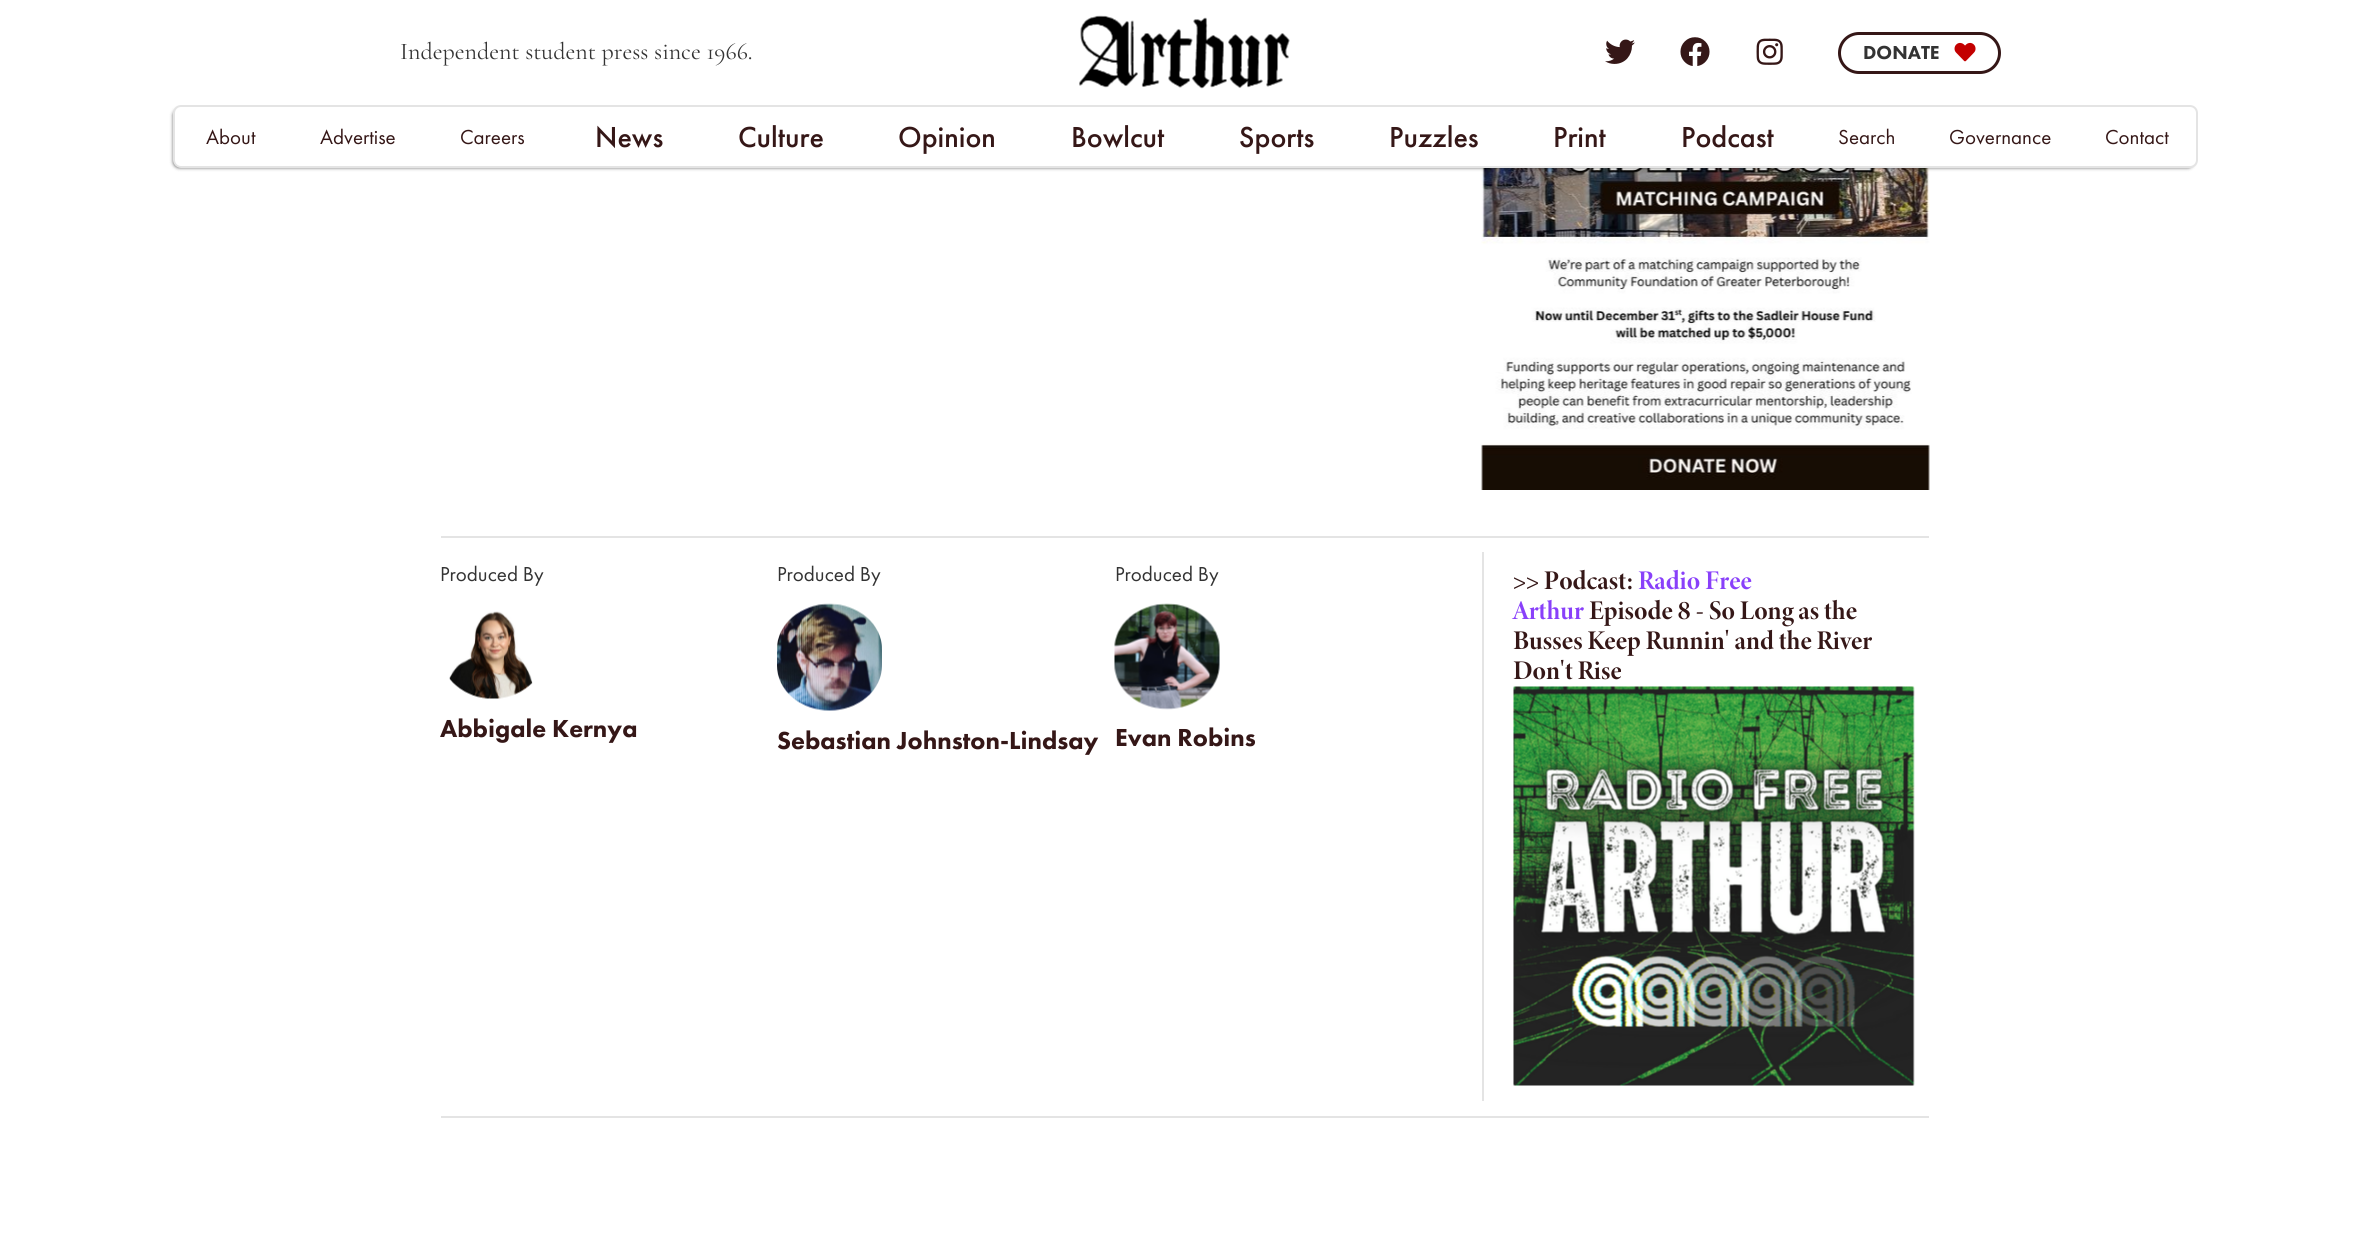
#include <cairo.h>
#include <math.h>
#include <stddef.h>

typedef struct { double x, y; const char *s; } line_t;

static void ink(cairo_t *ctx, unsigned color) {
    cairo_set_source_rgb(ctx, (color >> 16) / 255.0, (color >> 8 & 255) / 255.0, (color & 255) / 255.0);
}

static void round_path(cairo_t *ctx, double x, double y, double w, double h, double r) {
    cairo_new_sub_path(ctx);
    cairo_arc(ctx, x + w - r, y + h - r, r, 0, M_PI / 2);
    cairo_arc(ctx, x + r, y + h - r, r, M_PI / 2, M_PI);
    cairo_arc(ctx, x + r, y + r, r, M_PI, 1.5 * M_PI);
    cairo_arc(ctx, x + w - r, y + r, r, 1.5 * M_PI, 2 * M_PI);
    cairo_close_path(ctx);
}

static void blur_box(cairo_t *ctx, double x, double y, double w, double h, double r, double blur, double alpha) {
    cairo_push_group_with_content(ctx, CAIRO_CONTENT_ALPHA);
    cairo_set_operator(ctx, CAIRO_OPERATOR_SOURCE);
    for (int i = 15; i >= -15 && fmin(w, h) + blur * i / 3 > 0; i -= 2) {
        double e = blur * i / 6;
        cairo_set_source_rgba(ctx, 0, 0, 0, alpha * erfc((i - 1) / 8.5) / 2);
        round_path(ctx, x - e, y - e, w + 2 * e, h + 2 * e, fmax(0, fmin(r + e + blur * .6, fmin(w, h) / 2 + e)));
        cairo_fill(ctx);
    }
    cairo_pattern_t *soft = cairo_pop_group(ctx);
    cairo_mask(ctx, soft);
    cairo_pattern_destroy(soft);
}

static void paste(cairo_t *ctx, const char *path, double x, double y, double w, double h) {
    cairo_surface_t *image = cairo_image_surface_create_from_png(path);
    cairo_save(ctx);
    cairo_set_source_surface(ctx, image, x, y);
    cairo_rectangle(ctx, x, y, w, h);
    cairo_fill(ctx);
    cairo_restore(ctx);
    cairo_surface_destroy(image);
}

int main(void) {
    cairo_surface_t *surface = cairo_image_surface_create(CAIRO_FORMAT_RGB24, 2368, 1247);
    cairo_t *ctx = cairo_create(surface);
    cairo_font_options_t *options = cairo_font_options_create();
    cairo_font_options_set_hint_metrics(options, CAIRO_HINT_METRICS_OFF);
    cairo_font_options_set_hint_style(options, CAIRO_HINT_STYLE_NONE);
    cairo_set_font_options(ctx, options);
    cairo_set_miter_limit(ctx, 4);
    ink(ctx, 0xFFFFFF);
    cairo_paint(ctx);
    cairo_select_font_face(ctx, "Cormorant Garamond", CAIRO_FONT_SLANT_NORMAL, CAIRO_FONT_WEIGHT_NORMAL);
    cairo_set_font_size(ctx, 24);
    ink(ctx, 0x333333);
    cairo_move_to(ctx, 400, 59);
    cairo_show_text(ctx, "Independent student press since 1966.");
    paste(ctx, "media/1.png", 1079, 15, 211, 74);
    paste(ctx, "media/2.png", 1605, 39, 30, 25);
    paste(ctx, "media/3.png", 1680, 37, 30, 29);
    paste(ctx, "media/4.png", 1756, 38, 27, 27);
    round_path(ctx, 1839.5, 33.5, 160, 39, 19.5);
    ink(ctx, 0x351717);
    cairo_set_line_width(ctx, 3);
    cairo_stroke(ctx);
    cairo_select_font_face(ctx, "Futura PT Black", CAIRO_FONT_SLANT_NORMAL, CAIRO_FONT_WEIGHT_NORMAL);
    cairo_set_font_size(ctx, 19.5);
    ink(ctx, 0x333333);
    cairo_move_to(ctx, 1863, 59);
    cairo_show_text(ctx, "DONATE");
    paste(ctx, "media/5.png", 1954, 42, 22, 20);
    paste(ctx, "media/6.png", 1481, 168, 449, 322);
    ink(ctx, 0x000000);
    blur_box(ctx, 174, 110, 2019, 57, 5, 2, 1);
    ink(ctx, 0xFFFFFF);
    round_path(ctx, 174, 106, 2023, 61, 7);
    cairo_fill_preserve(ctx);
    ink(ctx, 0xE4E4E4);
    cairo_set_line_width(ctx, 2);
    cairo_stroke(ctx);
    cairo_select_font_face(ctx, "Futura PT", CAIRO_FONT_SLANT_NORMAL, CAIRO_FONT_WEIGHT_NORMAL);
    cairo_set_font_size(ctx, 21);
    ink(ctx, 0x351717);
    {
        static const line_t items[] = {
            {206, 144, "About"},
            {320, 144, "Advertise"},
            {460, 144, "Careers"},
        };
        for (size_t i = 0; i < sizeof items / sizeof *items; i++) {
            cairo_move_to(ctx, items[i].x, items[i].y);
            cairo_show_text(ctx, items[i].s);
        }
    }
    cairo_select_font_face(ctx, "Futura PT Medium", CAIRO_FONT_SLANT_NORMAL, CAIRO_FONT_WEIGHT_NORMAL);
    cairo_set_font_size(ctx, 30);
    {
        static const line_t items[] = {
            {595, 147, "News"},
            {738, 147, "Culture"},
            {898, 147, "Opinion"},
            {1071, 147, "Bowlcut"},
            {1239, 147, "Sports"},
            {1389, 147, "Puzzles"},
            {1553, 147, "Print"},
            {1681, 147, "Podcast"},
        };
        for (size_t i = 0; i < sizeof items / sizeof *items; i++) {
            cairo_move_to(ctx, items[i].x, items[i].y);
            cairo_show_text(ctx, items[i].s);
        }
    }
    cairo_select_font_face(ctx, "Futura PT", CAIRO_FONT_SLANT_NORMAL, CAIRO_FONT_WEIGHT_NORMAL);
    cairo_set_font_size(ctx, 21);
    {
        static const line_t items[] = {
            {1838, 144, "Search"},
            {1949, 144, "Governance"},
            {2105, 144, "Contact"},
        };
        for (size_t i = 0; i < sizeof items / sizeof *items; i++) {
            cairo_move_to(ctx, items[i].x, items[i].y);
            cairo_show_text(ctx, items[i].s);
        }
    }
    ink(ctx, 0xE4E4E4);
    cairo_rectangle(ctx, 441, 536, 1488, 2);
    cairo_fill(ctx);
    cairo_rectangle(ctx, 441, 1116, 1488, 2);
    cairo_fill(ctx);
    ink(ctx, 0x333333);
    cairo_move_to(ctx, 440, 581);
    cairo_show_text(ctx, "Produced By");
    paste(ctx, "media/7.png", 449, 611, 84, 88);
    cairo_select_font_face(ctx, "Futura PT Black", CAIRO_FONT_SLANT_NORMAL, CAIRO_FONT_WEIGHT_NORMAL);
    cairo_set_font_size(ctx, 25.5);
    ink(ctx, 0x351717);
    cairo_move_to(ctx, 440, 737);
    cairo_show_text(ctx, "Abbigale Kernya");
    cairo_select_font_face(ctx, "Futura PT", CAIRO_FONT_SLANT_NORMAL, CAIRO_FONT_WEIGHT_NORMAL);
    cairo_set_font_size(ctx, 21);
    ink(ctx, 0x333333);
    cairo_move_to(ctx, 777, 581);
    cairo_show_text(ctx, "Produced By");
    paste(ctx, "media/8.png", 777, 603, 105, 108);
    cairo_select_font_face(ctx, "Futura PT Black", CAIRO_FONT_SLANT_NORMAL, CAIRO_FONT_WEIGHT_NORMAL);
    cairo_set_font_size(ctx, 25.5);
    ink(ctx, 0x351717);
    cairo_move_to(ctx, 777, 749);
    cairo_show_text(ctx, "Sebastian Johnston-Lindsay");
    cairo_select_font_face(ctx, "Futura PT", CAIRO_FONT_SLANT_NORMAL, CAIRO_FONT_WEIGHT_NORMAL);
    cairo_set_font_size(ctx, 21);
    ink(ctx, 0x333333);
    cairo_move_to(ctx, 1115, 581);
    cairo_show_text(ctx, "Produced By");
    paste(ctx, "media/9.png", 1114, 603, 106, 107);
    cairo_select_font_face(ctx, "Futura PT Black", CAIRO_FONT_SLANT_NORMAL, CAIRO_FONT_WEIGHT_NORMAL);
    cairo_set_font_size(ctx, 25.5);
    ink(ctx, 0x351717);
    cairo_move_to(ctx, 1115, 746);
    cairo_show_text(ctx, "Evan Robins");
    ink(ctx, 0xE4E4E4);
    cairo_rectangle(ctx, 1482, 552, 2, 549);
    cairo_fill(ctx);
    cairo_select_font_face(ctx, "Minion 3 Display", CAIRO_FONT_SLANT_NORMAL, CAIRO_FONT_WEIGHT_BOLD);
    cairo_set_font_size(ctx, 27);
    ink(ctx, 0x351717);
    cairo_move_to(ctx, 1513, 589);
    cairo_show_text(ctx, ">> Podcast:");
    ink(ctx, 0x8940FA);
    cairo_move_to(ctx, 1638, 589);
    cairo_show_text(ctx, "Radio Free");
    cairo_move_to(ctx, 1513, 619);
    cairo_show_text(ctx, "Arthur");
    ink(ctx, 0x351717);
    {
        static const line_t items[] = {
            {1589, 619, "Episode 8 - So Long as the"},
            {1513, 649, "Busses Keep Runnin' and the River"},
            {1513, 679, "Don't Rise"},
        };
        for (size_t i = 0; i < sizeof items / sizeof *items; i++) {
            cairo_move_to(ctx, items[i].x, items[i].y);
            cairo_show_text(ctx, items[i].s);
        }
    }
    paste(ctx, "media/10.png", 1513, 686, 402, 400);
    cairo_surface_write_to_png(surface, "image.png");
    cairo_font_options_destroy(options);
    cairo_destroy(ctx);
    cairo_surface_destroy(surface);
    return 0;
}
